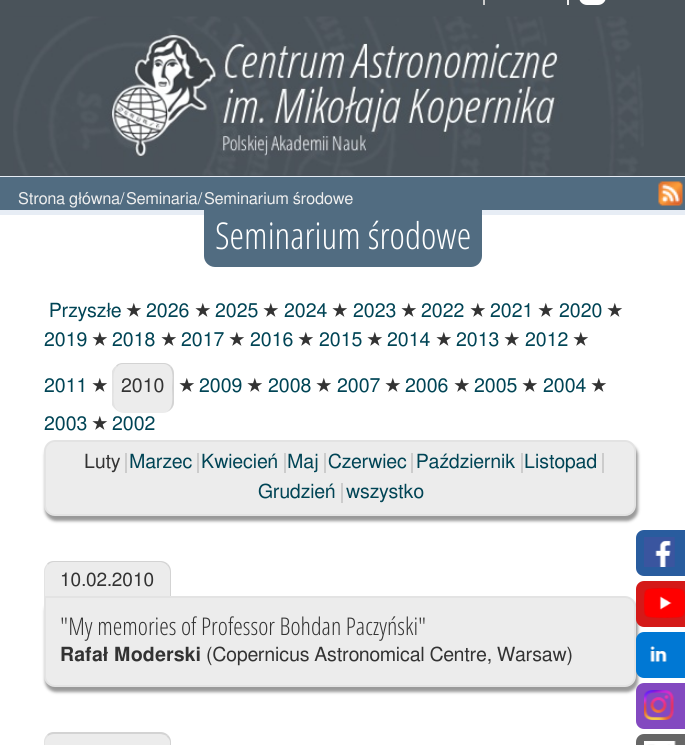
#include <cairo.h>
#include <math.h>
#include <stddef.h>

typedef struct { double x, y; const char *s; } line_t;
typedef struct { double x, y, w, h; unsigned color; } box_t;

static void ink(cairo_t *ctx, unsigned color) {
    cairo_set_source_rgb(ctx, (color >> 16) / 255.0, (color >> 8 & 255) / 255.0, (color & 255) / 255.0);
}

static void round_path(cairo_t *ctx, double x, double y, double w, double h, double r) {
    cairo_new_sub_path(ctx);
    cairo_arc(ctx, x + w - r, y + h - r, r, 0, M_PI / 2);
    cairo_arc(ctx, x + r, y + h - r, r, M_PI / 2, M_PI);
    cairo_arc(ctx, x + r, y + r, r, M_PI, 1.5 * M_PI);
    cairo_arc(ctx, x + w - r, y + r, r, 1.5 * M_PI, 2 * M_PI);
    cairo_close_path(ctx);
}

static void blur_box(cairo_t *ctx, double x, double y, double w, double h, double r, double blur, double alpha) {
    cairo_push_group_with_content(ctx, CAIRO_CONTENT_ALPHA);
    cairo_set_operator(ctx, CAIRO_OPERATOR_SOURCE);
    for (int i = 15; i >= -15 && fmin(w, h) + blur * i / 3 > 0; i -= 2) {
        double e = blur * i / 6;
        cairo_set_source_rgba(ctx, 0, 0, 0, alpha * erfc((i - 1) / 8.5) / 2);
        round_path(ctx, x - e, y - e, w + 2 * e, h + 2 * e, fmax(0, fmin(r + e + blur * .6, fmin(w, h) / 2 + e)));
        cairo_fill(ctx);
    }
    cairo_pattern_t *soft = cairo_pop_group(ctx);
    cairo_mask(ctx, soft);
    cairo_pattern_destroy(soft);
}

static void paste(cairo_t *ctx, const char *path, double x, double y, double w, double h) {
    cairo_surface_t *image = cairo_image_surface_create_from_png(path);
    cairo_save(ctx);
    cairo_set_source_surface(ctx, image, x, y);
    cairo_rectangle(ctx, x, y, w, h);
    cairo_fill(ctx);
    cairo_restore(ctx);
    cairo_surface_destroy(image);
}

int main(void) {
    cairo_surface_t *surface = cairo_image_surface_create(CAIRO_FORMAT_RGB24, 685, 745);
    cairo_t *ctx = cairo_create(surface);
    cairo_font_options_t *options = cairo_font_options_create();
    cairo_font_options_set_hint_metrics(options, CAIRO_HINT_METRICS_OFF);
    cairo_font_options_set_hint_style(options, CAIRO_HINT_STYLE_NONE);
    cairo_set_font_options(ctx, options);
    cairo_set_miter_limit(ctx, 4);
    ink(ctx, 0xE7EDF5);
    cairo_paint(ctx);
    {
        static const box_t items[] = {
            {0, 0, 685, 176, 0x4A535A},
            {483, 0, 2, 5, 0xCCCCCC},
            {567, 0, 2, 5, 0xEEEEEE},
        };
        for (size_t i = 0; i < sizeof items / sizeof *items; i++) {
            ink(ctx, items[i].color);
            cairo_rectangle(ctx, items[i].x, items[i].y, items[i].w, items[i].h);
            cairo_fill(ctx);
        }
    }
    ink(ctx, 0xFEFEFE);
    round_path(ctx, 579, -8, 27, 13, 8);
    cairo_fill(ctx);
    paste(ctx, "media/1.png", 13, 16, 631, 160);
    ink(ctx, 0x516C81);
    cairo_rectangle(ctx, 0, 177, 685, 33);
    cairo_fill(ctx);
    cairo_select_font_face(ctx, "FreeSans", CAIRO_FONT_SLANT_NORMAL, CAIRO_FONT_WEIGHT_NORMAL);
    cairo_set_font_size(ctx, 16.25);
    ink(ctx, 0xEEEEEE);
    {
        static const line_t items[] = {
            {18, 204, "Strona główna/"},
            {126, 204, "Seminaria/"},
            {204, 204, "Seminarium środowe"},
        };
        for (size_t i = 0; i < sizeof items / sizeof *items; i++) {
            cairo_move_to(ctx, items[i].x, items[i].y);
            cairo_show_text(ctx, items[i].s);
        }
    }
    paste(ctx, "media/2.png", 658, 181, 25, 25);
    ink(ctx, 0xFFFFFF);
    cairo_rectangle(ctx, 0, 215, 685, 530);
    cairo_fill(ctx);
    ink(ctx, 0x516C81);
    cairo_new_path(ctx);
    cairo_move_to(ctx, 204, 207);
    cairo_line_to(ctx, 482, 207);
    cairo_line_to(ctx, 482, 256);
    cairo_curve_to(ctx, 482, 262, 477, 267, 471, 267);
    cairo_line_to(ctx, 215, 267);
    cairo_curve_to(ctx, 209, 267, 204, 262, 204, 256);
    cairo_close_path(ctx);
    cairo_fill(ctx);
    cairo_select_font_face(ctx, "Open Sans Condensed Light", CAIRO_FONT_SLANT_NORMAL, CAIRO_FONT_WEIGHT_NORMAL);
    cairo_set_font_size(ctx, 37);
    ink(ctx, 0xFFFFFF);
    cairo_move_to(ctx, 215, 249);
    cairo_show_text(ctx, "Seminarium środowe");
    cairo_select_font_face(ctx, "FreeSans", CAIRO_FONT_SLANT_NORMAL, CAIRO_FONT_WEIGHT_NORMAL);
    cairo_set_font_size(ctx, 19.5);
    ink(ctx, 0x004455);
    cairo_move_to(ctx, 49, 317);
    cairo_show_text(ctx, "Przyszłe");
    ink(ctx, 0x333333);
    cairo_move_to(ctx, 126, 317);
    cairo_show_text(ctx, "★");
    ink(ctx, 0x004455);
    cairo_move_to(ctx, 146, 317);
    cairo_show_text(ctx, "2026");
    ink(ctx, 0x333333);
    cairo_move_to(ctx, 195, 317);
    cairo_show_text(ctx, "★");
    ink(ctx, 0x004455);
    cairo_move_to(ctx, 215, 317);
    cairo_show_text(ctx, "2025");
    ink(ctx, 0x333333);
    cairo_move_to(ctx, 263, 317);
    cairo_show_text(ctx, "★");
    ink(ctx, 0x004455);
    cairo_move_to(ctx, 284, 317);
    cairo_show_text(ctx, "2024");
    ink(ctx, 0x333333);
    cairo_move_to(ctx, 332, 317);
    cairo_show_text(ctx, "★");
    ink(ctx, 0x004455);
    cairo_move_to(ctx, 353, 317);
    cairo_show_text(ctx, "2023");
    ink(ctx, 0x333333);
    cairo_move_to(ctx, 401, 317);
    cairo_show_text(ctx, "★");
    ink(ctx, 0x004455);
    cairo_move_to(ctx, 421, 317);
    cairo_show_text(ctx, "2022");
    ink(ctx, 0x333333);
    cairo_move_to(ctx, 470, 317);
    cairo_show_text(ctx, "★");
    ink(ctx, 0x004455);
    cairo_move_to(ctx, 490, 317);
    cairo_show_text(ctx, "2021");
    ink(ctx, 0x333333);
    cairo_move_to(ctx, 538, 317);
    cairo_show_text(ctx, "★");
    ink(ctx, 0x004455);
    cairo_move_to(ctx, 559, 317);
    cairo_show_text(ctx, "2020");
    ink(ctx, 0x333333);
    cairo_move_to(ctx, 607, 317);
    cairo_show_text(ctx, "★");
    ink(ctx, 0x004455);
    cairo_move_to(ctx, 44, 346);
    cairo_show_text(ctx, "2019");
    ink(ctx, 0x333333);
    cairo_move_to(ctx, 92, 346);
    cairo_show_text(ctx, "★");
    ink(ctx, 0x004455);
    cairo_move_to(ctx, 112, 346);
    cairo_show_text(ctx, "2018");
    ink(ctx, 0x333333);
    cairo_move_to(ctx, 161, 346);
    cairo_show_text(ctx, "★");
    ink(ctx, 0x004455);
    cairo_move_to(ctx, 181, 346);
    cairo_show_text(ctx, "2017");
    ink(ctx, 0x333333);
    cairo_move_to(ctx, 229, 346);
    cairo_show_text(ctx, "★");
    ink(ctx, 0x004455);
    cairo_move_to(ctx, 250, 346);
    cairo_show_text(ctx, "2016");
    ink(ctx, 0x333333);
    cairo_move_to(ctx, 298, 346);
    cairo_show_text(ctx, "★");
    ink(ctx, 0x004455);
    cairo_move_to(ctx, 319, 346);
    cairo_show_text(ctx, "2015");
    ink(ctx, 0x333333);
    cairo_move_to(ctx, 367, 346);
    cairo_show_text(ctx, "★");
    ink(ctx, 0x004455);
    cairo_move_to(ctx, 387, 346);
    cairo_show_text(ctx, "2014");
    ink(ctx, 0x333333);
    cairo_move_to(ctx, 436, 346);
    cairo_show_text(ctx, "★");
    ink(ctx, 0x004455);
    cairo_move_to(ctx, 456, 346);
    cairo_show_text(ctx, "2013");
    ink(ctx, 0x333333);
    cairo_move_to(ctx, 504, 346);
    cairo_show_text(ctx, "★");
    ink(ctx, 0x004455);
    cairo_move_to(ctx, 525, 346);
    cairo_show_text(ctx, "2012");
    ink(ctx, 0x333333);
    cairo_move_to(ctx, 573, 346);
    cairo_show_text(ctx, "★");
    ink(ctx, 0x004455);
    cairo_move_to(ctx, 44, 392);
    cairo_show_text(ctx, "2011");
    ink(ctx, 0x333333);
    cairo_move_to(ctx, 92, 392);
    cairo_show_text(ctx, "★");
    ink(ctx, 0xECECEC);
    round_path(ctx, 113, 363, 61, 50, 11);
    cairo_fill(ctx);
    ink(ctx, 0xD3D3D3);
    cairo_new_path(ctx);
    cairo_move_to(ctx, 123, 363);
    cairo_curve_to(ctx, 120, 363, 117, 364, 116, 366);
    cairo_line_to(ctx, 117, 367);
    cairo_curve_to(ctx, 118, 365, 120, 364, 123, 364);
    cairo_line_to(ctx, 164, 364);
    cairo_curve_to(ctx, 166, 364, 168, 365, 170, 367);
    cairo_line_to(ctx, 171, 366);
    cairo_curve_to(ctx, 169, 364, 166, 363, 164, 363);
    cairo_close_path(ctx);
    cairo_fill(ctx);
    cairo_new_path(ctx);
    cairo_move_to(ctx, 174, 402);
    cairo_line_to(ctx, 174, 374);
    cairo_curve_to(ctx, 174, 371, 173, 368, 171, 366);
    cairo_line_to(ctx, 170, 367);
    cairo_curve_to(ctx, 174, 373, 172, 382, 172, 388);
    cairo_curve_to(ctx, 172, 394, 175, 412, 164, 412);
    cairo_curve_to(ctx, 169, 412, 174, 408, 174, 402);
    cairo_close_path(ctx);
    cairo_fill(ctx);
    ink(ctx, 0xE3E3E3);
    cairo_new_path(ctx);
    cairo_move_to(ctx, 112, 371);
    cairo_curve_to(ctx, 113, 369, 114, 367, 116, 366);
    cairo_line_to(ctx, 117, 367);
    cairo_curve_to(ctx, 112, 372, 114, 382, 114, 388);
    cairo_curve_to(ctx, 114, 395, 111, 412, 123, 412);
    cairo_curve_to(ctx, 118, 412, 114, 409, 112, 405);
    cairo_close_path(ctx);
    cairo_fill(ctx);
    ink(ctx, 0x333333);
    cairo_move_to(ctx, 121, 392);
    cairo_show_text(ctx, "2010");
    cairo_move_to(ctx, 179, 392);
    cairo_show_text(ctx, "★");
    ink(ctx, 0x004455);
    cairo_move_to(ctx, 199, 392);
    cairo_show_text(ctx, "2009");
    ink(ctx, 0x333333);
    cairo_move_to(ctx, 247, 392);
    cairo_show_text(ctx, "★");
    ink(ctx, 0x004455);
    cairo_move_to(ctx, 268, 392);
    cairo_show_text(ctx, "2008");
    ink(ctx, 0x333333);
    cairo_move_to(ctx, 316, 392);
    cairo_show_text(ctx, "★");
    ink(ctx, 0x004455);
    cairo_move_to(ctx, 337, 392);
    cairo_show_text(ctx, "2007");
    ink(ctx, 0x333333);
    cairo_move_to(ctx, 385, 392);
    cairo_show_text(ctx, "★");
    ink(ctx, 0x004455);
    cairo_move_to(ctx, 405, 392);
    cairo_show_text(ctx, "2006");
    ink(ctx, 0x333333);
    cairo_move_to(ctx, 454, 392);
    cairo_show_text(ctx, "★");
    ink(ctx, 0x004455);
    cairo_move_to(ctx, 474, 392);
    cairo_show_text(ctx, "2005");
    ink(ctx, 0x333333);
    cairo_move_to(ctx, 522, 392);
    cairo_show_text(ctx, "★");
    ink(ctx, 0x004455);
    cairo_move_to(ctx, 543, 392);
    cairo_show_text(ctx, "2004");
    ink(ctx, 0x333333);
    cairo_move_to(ctx, 591, 392);
    cairo_show_text(ctx, "★");
    ink(ctx, 0x004455);
    cairo_move_to(ctx, 44, 430);
    cairo_show_text(ctx, "2003");
    ink(ctx, 0x333333);
    cairo_move_to(ctx, 92, 430);
    cairo_show_text(ctx, "★");
    ink(ctx, 0x004455);
    cairo_move_to(ctx, 112, 430);
    cairo_show_text(ctx, "2002");
    ink(ctx, 0x999999);
    blur_box(ctx, 45, 444, 593, 77, 11, 1.5, 1);
    ink(ctx, 0xECECEC);
    round_path(ctx, 45, 441, 590, 74, 10);
    cairo_fill_preserve(ctx);
    ink(ctx, 0xE3E3E3);
    cairo_stroke(ctx);
    ink(ctx, 0x333333);
    cairo_move_to(ctx, 84, 468);
    cairo_show_text(ctx, "Luty");
    ink(ctx, 0xCCCCCC);
    cairo_rectangle(ctx, 125, 453, 2, 20);
    cairo_fill(ctx);
    ink(ctx, 0x004455);
    cairo_move_to(ctx, 129, 468);
    cairo_show_text(ctx, "Marzec");
    cairo_move_to(ctx, 201, 468);
    cairo_show_text(ctx, "Kwiecień");
    ink(ctx, 0xCCCCCC);
    cairo_rectangle(ctx, 197, 453, 2, 20);
    cairo_fill(ctx);
    ink(ctx, 0x004455);
    cairo_move_to(ctx, 287, 468);
    cairo_show_text(ctx, "Maj");
    ink(ctx, 0xCCCCCC);
    cairo_rectangle(ctx, 284, 453, 2, 20);
    cairo_fill(ctx);
    cairo_rectangle(ctx, 324, 453, 2, 20);
    cairo_fill(ctx);
    ink(ctx, 0x004455);
    cairo_move_to(ctx, 328, 468);
    cairo_show_text(ctx, "Czerwiec");
    ink(ctx, 0xCCCCCC);
    cairo_rectangle(ctx, 411, 453, 2, 20);
    cairo_fill(ctx);
    ink(ctx, 0x004455);
    cairo_move_to(ctx, 416, 468);
    cairo_show_text(ctx, "Październik");
    cairo_move_to(ctx, 524, 468);
    cairo_show_text(ctx, "Listopad");
    ink(ctx, 0xCCCCCC);
    cairo_rectangle(ctx, 521, 453, 2, 20);
    cairo_fill(ctx);
    cairo_rectangle(ctx, 602, 453, 2, 20);
    cairo_fill(ctx);
    ink(ctx, 0x004455);
    cairo_move_to(ctx, 258, 498);
    cairo_show_text(ctx, "Grudzień");
    ink(ctx, 0xCCCCCC);
    cairo_rectangle(ctx, 341, 483, 2, 20);
    cairo_fill(ctx);
    ink(ctx, 0x004455);
    cairo_move_to(ctx, 346, 498);
    cairo_show_text(ctx, "wszystko");
    ink(ctx, 0xECECEC);
    cairo_new_path(ctx);
    cairo_move_to(ctx, 55, 561);
    cairo_line_to(ctx, 160, 561);
    cairo_curve_to(ctx, 166, 561, 171, 566, 171, 572);
    cairo_line_to(ctx, 171, 597);
    cairo_line_to(ctx, 44, 597);
    cairo_line_to(ctx, 44, 572);
    cairo_curve_to(ctx, 44, 566, 49, 561, 55, 561);
    cairo_close_path(ctx);
    cairo_fill(ctx);
    ink(ctx, 0xD3D3D3);
    cairo_new_path(ctx);
    cairo_move_to(ctx, 54, 561);
    cairo_line_to(ctx, 160, 561);
    cairo_curve_to(ctx, 163, 561, 166, 562, 168, 564);
    cairo_line_to(ctx, 167, 565);
    cairo_curve_to(ctx, 165, 563, 162, 562, 160, 562);
    cairo_line_to(ctx, 54, 562);
    cairo_curve_to(ctx, 52, 562, 49, 563, 48, 565);
    cairo_line_to(ctx, 47, 564);
    cairo_curve_to(ctx, 48, 562, 51, 561, 54, 561);
    cairo_close_path(ctx);
    cairo_fill(ctx);
    cairo_new_path(ctx);
    cairo_move_to(ctx, 170, 597);
    cairo_line_to(ctx, 171, 597);
    cairo_line_to(ctx, 171, 572);
    cairo_curve_to(ctx, 171, 569, 170, 566, 168, 564);
    cairo_line_to(ctx, 167, 565);
    cairo_curve_to(ctx, 169, 567, 170, 569.5, 170, 572);
    cairo_close_path(ctx);
    cairo_fill(ctx);
    ink(ctx, 0xE3E3E3);
    cairo_new_path(ctx);
    cairo_move_to(ctx, 44, 597);
    cairo_line_to(ctx, 45, 597);
    cairo_line_to(ctx, 45, 572);
    cairo_curve_to(ctx, 45, 569.5, 46, 567, 47.5, 565);
    cairo_line_to(ctx, 47, 564);
    cairo_curve_to(ctx, 45, 566, 44, 569, 44, 572);
    cairo_close_path(ctx);
    cairo_fill(ctx);
    cairo_set_font_size(ctx, 19);
    ink(ctx, 0x333333);
    cairo_move_to(ctx, 60, 586);
    cairo_show_text(ctx, "10.02.2010");
    ink(ctx, 0x999999);
    blur_box(ctx, 45, 600, 593, 92, 11, 1.5, 1);
    ink(ctx, 0xECECEC);
    cairo_new_path(ctx);
    cairo_move_to(ctx, 45, 597);
    cairo_line_to(ctx, 625, 597);
    cairo_curve_to(ctx, 630.5, 597, 635, 601.5, 635, 607);
    cairo_line_to(ctx, 635, 676);
    cairo_curve_to(ctx, 635, 681.5, 630.5, 686, 625, 686);
    cairo_line_to(ctx, 55, 686);
    cairo_curve_to(ctx, 49.5, 686, 45, 681.5, 45, 676);
    cairo_close_path(ctx);
    cairo_fill_preserve(ctx);
    ink(ctx, 0xE3E3E3);
    cairo_stroke(ctx);
    cairo_select_font_face(ctx, "Open Sans Condensed Light", CAIRO_FONT_SLANT_NORMAL, CAIRO_FONT_WEIGHT_NORMAL);
    cairo_set_font_size(ctx, 24.4);
    ink(ctx, 0x333333);
    cairo_move_to(ctx, 60, 635);
    cairo_show_text(ctx, "\"My memories of Professor Bohdan Paczyński\"");
    cairo_select_font_face(ctx, "FreeSans SemiBold", CAIRO_FONT_SLANT_NORMAL, CAIRO_FONT_WEIGHT_NORMAL);
    cairo_set_font_size(ctx, 19.5);
    cairo_move_to(ctx, 60, 661);
    cairo_show_text(ctx, "Rafał Moderski");
    cairo_select_font_face(ctx, "FreeSans", CAIRO_FONT_SLANT_NORMAL, CAIRO_FONT_WEIGHT_NORMAL);
    cairo_move_to(ctx, 206, 661);
    cairo_show_text(ctx, "(Copernicus Astronomical Centre, Warsaw)");
    ink(ctx, 0xECECEC);
    cairo_new_path(ctx);
    cairo_move_to(ctx, 55, 732);
    cairo_line_to(ctx, 160, 732);
    cairo_curve_to(ctx, 166, 732, 171, 737, 171, 743);
    cairo_line_to(ctx, 171, 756);
    cairo_line_to(ctx, 44, 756);
    cairo_line_to(ctx, 44, 743);
    cairo_curve_to(ctx, 44, 737, 49, 732, 55, 732);
    cairo_close_path(ctx);
    cairo_fill(ctx);
    ink(ctx, 0xD3D3D3);
    cairo_new_path(ctx);
    cairo_move_to(ctx, 54, 732);
    cairo_line_to(ctx, 160, 732);
    cairo_curve_to(ctx, 163, 732, 166, 733, 168, 735);
    cairo_line_to(ctx, 167, 736);
    cairo_curve_to(ctx, 165, 735, 162, 734, 160, 734);
    cairo_line_to(ctx, 54, 734);
    cairo_curve_to(ctx, 52, 734, 49, 735, 48, 736);
    cairo_line_to(ctx, 47, 735);
    cairo_curve_to(ctx, 48, 733, 51, 732, 54, 732);
    cairo_close_path(ctx);
    cairo_fill(ctx);
    cairo_new_path(ctx);
    cairo_move_to(ctx, 170, 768);
    cairo_line_to(ctx, 171, 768);
    cairo_line_to(ctx, 171, 742);
    cairo_curve_to(ctx, 171, 739.5, 170, 737, 168, 735);
    cairo_line_to(ctx, 166.5, 736.5);
    cairo_curve_to(ctx, 168.5, 738, 170, 740, 170, 742);
    cairo_close_path(ctx);
    cairo_fill(ctx);
    ink(ctx, 0xE3E3E3);
    cairo_new_path(ctx);
    cairo_move_to(ctx, 44, 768);
    cairo_line_to(ctx, 45, 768);
    cairo_line_to(ctx, 45, 742);
    cairo_curve_to(ctx, 45, 740, 46, 738, 48, 736.5);
    cairo_line_to(ctx, 46.5, 735);
    cairo_curve_to(ctx, 45, 737, 44, 739.5, 44, 742);
    cairo_close_path(ctx);
    cairo_fill(ctx);
    ink(ctx, 0x295C9E);
    round_path(ctx, 636, 530, 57, 46, 8);
    cairo_fill(ctx);
    paste(ctx, "media/3.png", 644, 537, 31, 30);
    ink(ctx, 0xD41918);
    round_path(ctx, 636, 581, 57, 46, 8);
    cairo_fill(ctx);
    paste(ctx, "media/4.png", 644, 588, 41, 30);
    ink(ctx, 0x0078D4);
    round_path(ctx, 636, 632, 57, 46, 8);
    cairo_fill(ctx);
    paste(ctx, "media/5.png", 650, 646, 17, 16);
    ink(ctx, 0x8349C0);
    round_path(ctx, 636, 683, 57, 46, 8);
    cairo_fill(ctx);
    paste(ctx, "media/6.png", 644, 690, 30, 30);
    ink(ctx, 0x666666);
    round_path(ctx, 636, 734, 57, 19, 8);
    cairo_fill(ctx);
    paste(ctx, "media/7.png", 644, 741, 32, 4);
    cairo_surface_write_to_png(surface, "image.png");
    cairo_font_options_destroy(options);
    cairo_destroy(ctx);
    cairo_surface_destroy(surface);
    return 0;
}
